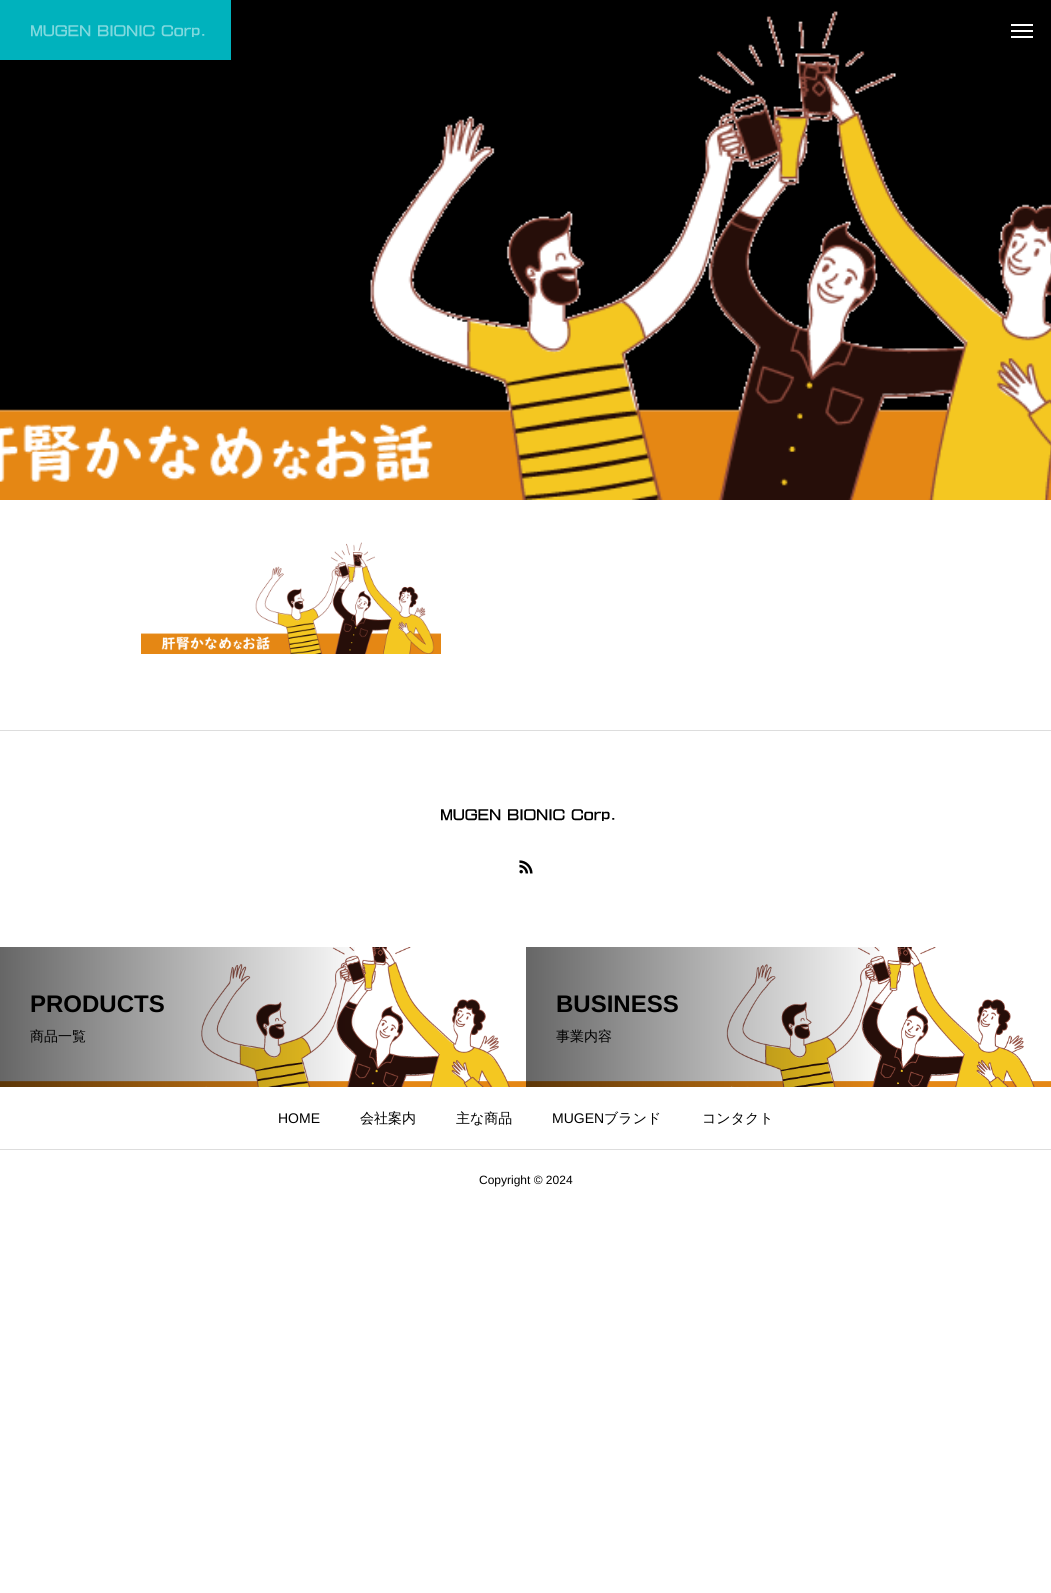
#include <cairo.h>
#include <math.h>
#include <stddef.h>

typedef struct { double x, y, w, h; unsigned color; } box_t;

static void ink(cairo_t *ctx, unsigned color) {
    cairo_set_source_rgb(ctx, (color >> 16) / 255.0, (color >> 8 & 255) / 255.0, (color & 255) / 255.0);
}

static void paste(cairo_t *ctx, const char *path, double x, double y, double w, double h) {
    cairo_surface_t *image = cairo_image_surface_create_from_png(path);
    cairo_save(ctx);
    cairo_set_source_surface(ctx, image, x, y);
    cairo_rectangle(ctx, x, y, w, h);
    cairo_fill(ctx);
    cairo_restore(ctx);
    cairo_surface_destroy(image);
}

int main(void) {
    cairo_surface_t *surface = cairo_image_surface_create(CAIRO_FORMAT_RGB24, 1051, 1593);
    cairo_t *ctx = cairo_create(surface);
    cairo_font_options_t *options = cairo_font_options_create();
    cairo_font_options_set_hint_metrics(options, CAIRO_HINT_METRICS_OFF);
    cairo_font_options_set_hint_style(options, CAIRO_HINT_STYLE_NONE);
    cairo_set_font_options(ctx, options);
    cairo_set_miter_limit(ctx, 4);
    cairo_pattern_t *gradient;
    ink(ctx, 0xFFFFFF);
    cairo_paint(ctx);
    ink(ctx, 0x000000);
    cairo_rectangle(ctx, 0, 0, 1051, 411);
    cairo_fill(ctx);
    paste(ctx, "media/2.png", 0, 11, 1051, 489);
    ink(ctx, 0x00B2BD);
    cairo_rectangle(ctx, 0, 0, 231, 60);
    cairo_fill(ctx);
    paste(ctx, "media/1.png", 31, 25, 174, 12);
    {
        static const box_t items[] = {
            {1011, 24, 22, 2, 0xFFFFFF},
            {1011, 30, 22, 2, 0xFFFFFF},
            {1011, 36, 22, 2, 0xFFFFFF},
        };
        for (size_t i = 0; i < sizeof items / sizeof *items; i++) {
            ink(ctx, items[i].color);
            cairo_rectangle(ctx, items[i].x, items[i].y, items[i].w, items[i].h);
            cairo_fill(ctx);
        }
    }
    paste(ctx, "media/3.png", 141, 542, 300, 112);
    ink(ctx, 0xDDDDDD);
    cairo_rectangle(ctx, 0, 730, 1051, 1);
    cairo_fill(ctx);
    paste(ctx, "media/4.png", 441, 809, 174, 12);
    paste(ctx, "media/5.png", 519, 860, 14, 14);
    paste(ctx, "media/6.png", 0, 947, 526, 140);
    gradient = cairo_pattern_create_linear(0, 1017, 368, 1017);
    cairo_pattern_add_color_stop_rgba(gradient, 0, 0, 0, 0, 0.6);
    cairo_pattern_add_color_stop_rgba(gradient, 1, 0, 0, 0, 0);
    cairo_set_source(ctx, gradient);
    cairo_pattern_destroy(gradient);
    cairo_rectangle(ctx, 0, 947, 355, 140);
    cairo_fill(ctx);
    cairo_select_font_face(ctx, "Liberation Sans", CAIRO_FONT_SLANT_NORMAL, CAIRO_FONT_WEIGHT_BOLD);
    cairo_set_font_size(ctx, 24);
    ink(ctx, 0x000000);
    cairo_move_to(ctx, 30, 1012);
    cairo_show_text(ctx, "PRODUCTS");
    cairo_select_font_face(ctx, "WenQuanYi Zen Hei Medium", CAIRO_FONT_SLANT_NORMAL, CAIRO_FONT_WEIGHT_NORMAL);
    cairo_set_font_size(ctx, 14);
    cairo_move_to(ctx, 30, 1041);
    cairo_show_text(ctx, "商品一覧");
    paste(ctx, "media/7.png", 526, 947, 525, 140);
    gradient = cairo_pattern_create_linear(526, 1017, 893, 1017);
    cairo_pattern_add_color_stop_rgba(gradient, 0, 0, 0, 0, 0.6);
    cairo_pattern_add_color_stop_rgba(gradient, 1, 0, 0, 0, 0);
    cairo_set_source(ctx, gradient);
    cairo_pattern_destroy(gradient);
    cairo_rectangle(ctx, 526, 947, 354, 140);
    cairo_fill(ctx);
    cairo_select_font_face(ctx, "Liberation Sans", CAIRO_FONT_SLANT_NORMAL, CAIRO_FONT_WEIGHT_BOLD);
    cairo_set_font_size(ctx, 24);
    ink(ctx, 0x000000);
    cairo_move_to(ctx, 556, 1012);
    cairo_show_text(ctx, "BUSINESS");
    cairo_select_font_face(ctx, "WenQuanYi Zen Hei Medium", CAIRO_FONT_SLANT_NORMAL, CAIRO_FONT_WEIGHT_NORMAL);
    cairo_set_font_size(ctx, 14);
    cairo_move_to(ctx, 556, 1041);
    cairo_show_text(ctx, "事業内容");
    cairo_select_font_face(ctx, "Liberation Sans", CAIRO_FONT_SLANT_NORMAL, CAIRO_FONT_WEIGHT_NORMAL);
    cairo_move_to(ctx, 278, 1123);
    cairo_show_text(ctx, "HOME");
    cairo_select_font_face(ctx, "WenQuanYi Zen Hei Medium", CAIRO_FONT_SLANT_NORMAL, CAIRO_FONT_WEIGHT_NORMAL);
    cairo_move_to(ctx, 360, 1123);
    cairo_show_text(ctx, "会社案内");
    cairo_move_to(ctx, 456, 1123);
    cairo_show_text(ctx, "主な商品");
    cairo_select_font_face(ctx, "Liberation Sans", CAIRO_FONT_SLANT_NORMAL, CAIRO_FONT_WEIGHT_NORMAL);
    cairo_move_to(ctx, 552, 1123);
    cairo_show_text(ctx, "MUGEN");
    cairo_select_font_face(ctx, "WenQuanYi Zen Hei Medium", CAIRO_FONT_SLANT_NORMAL, CAIRO_FONT_WEIGHT_NORMAL);
    cairo_move_to(ctx, 604, 1123);
    cairo_show_text(ctx, "ブランド");
    cairo_move_to(ctx, 702, 1123);
    cairo_show_text(ctx, "コンタクト");
    ink(ctx, 0xDDDDDD);
    cairo_rectangle(ctx, 0, 1149, 1051, 1);
    cairo_fill(ctx);
    cairo_select_font_face(ctx, "Liberation Sans", CAIRO_FONT_SLANT_NORMAL, CAIRO_FONT_WEIGHT_NORMAL);
    cairo_set_font_size(ctx, 12);
    ink(ctx, 0x000000);
    cairo_move_to(ctx, 479, 1184);
    cairo_show_text(ctx, "Copyright © 2024");
    cairo_surface_write_to_png(surface, "image.png");
    cairo_font_options_destroy(options);
    cairo_destroy(ctx);
    cairo_surface_destroy(surface);
    return 0;
}
